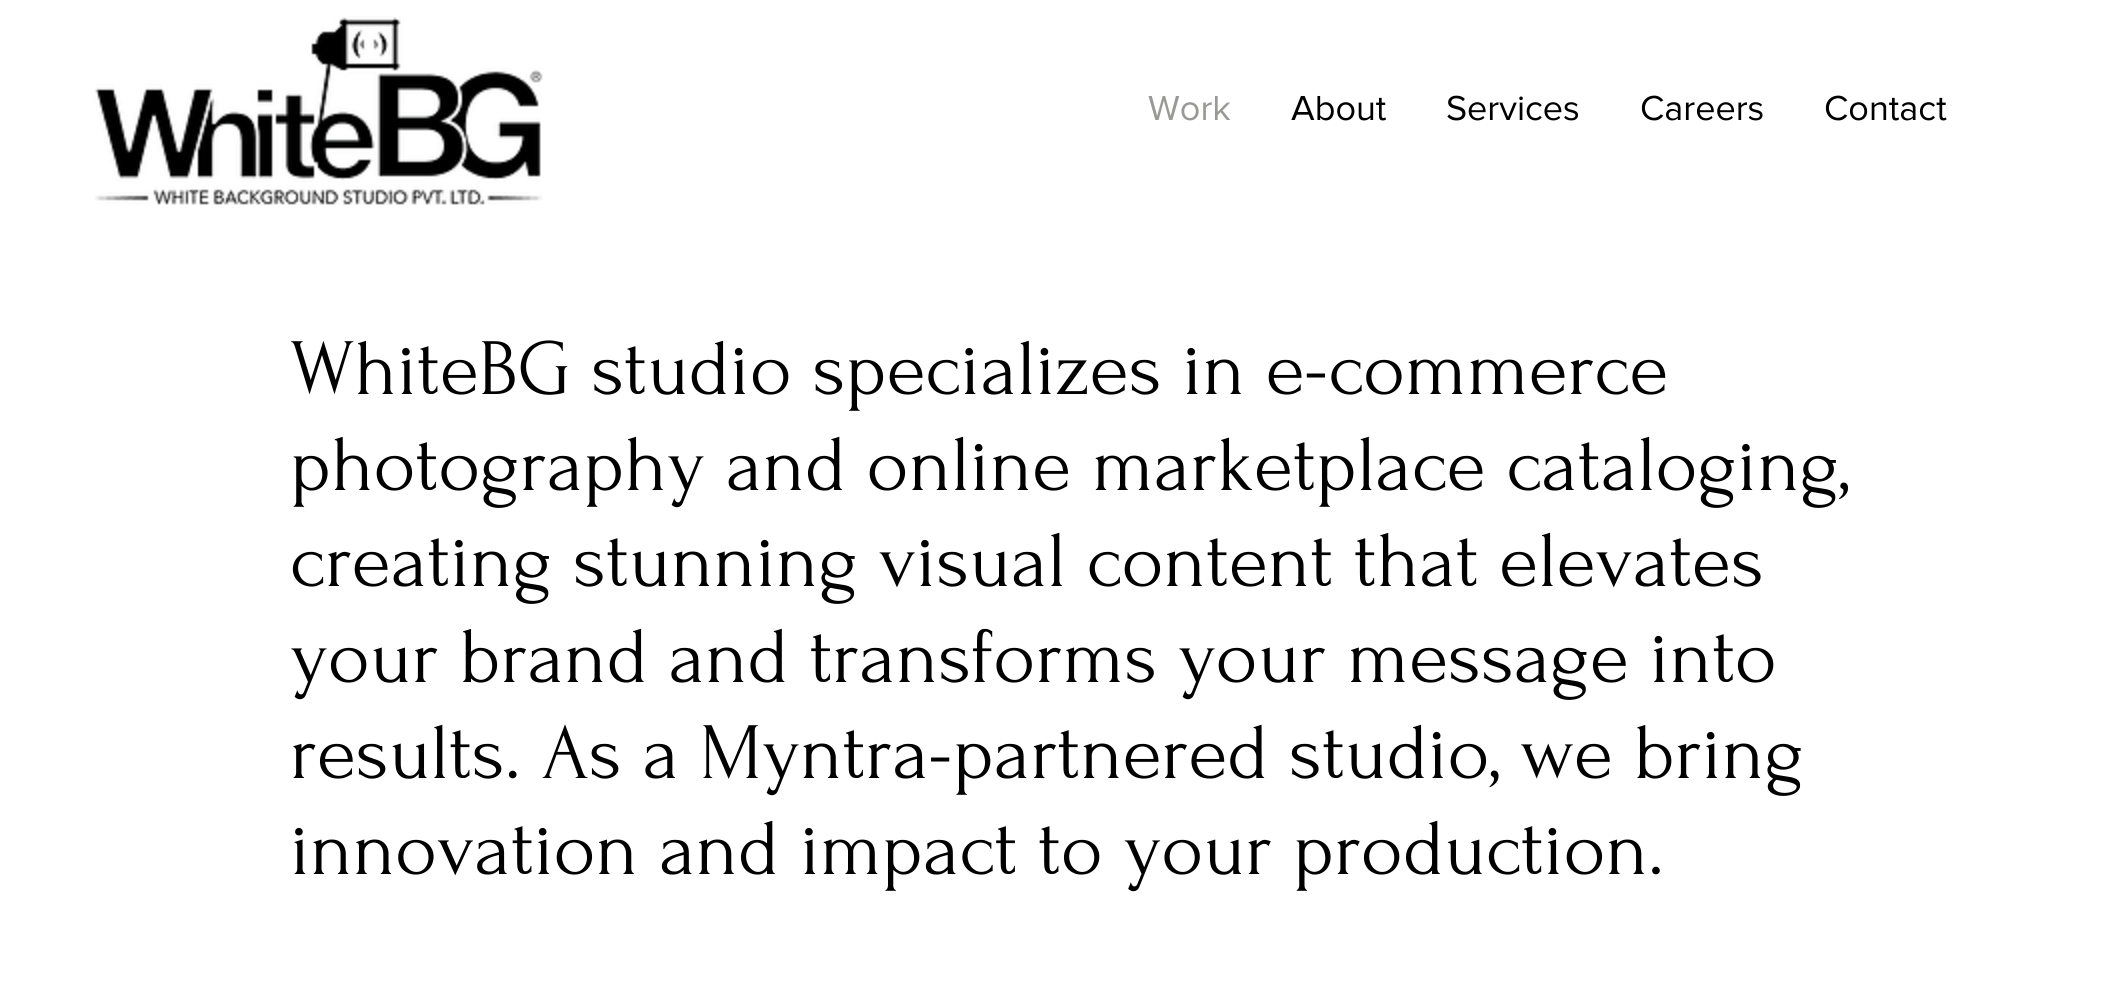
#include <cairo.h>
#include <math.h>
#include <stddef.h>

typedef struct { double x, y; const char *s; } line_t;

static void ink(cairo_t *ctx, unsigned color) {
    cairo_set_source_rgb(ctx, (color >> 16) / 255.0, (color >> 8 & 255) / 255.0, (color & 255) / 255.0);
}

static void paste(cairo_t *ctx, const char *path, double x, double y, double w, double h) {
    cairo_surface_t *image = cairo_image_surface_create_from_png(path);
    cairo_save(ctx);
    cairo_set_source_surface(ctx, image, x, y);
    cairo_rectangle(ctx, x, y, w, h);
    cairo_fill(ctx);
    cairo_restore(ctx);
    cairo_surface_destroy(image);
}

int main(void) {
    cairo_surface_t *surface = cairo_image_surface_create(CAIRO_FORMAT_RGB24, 2120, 1004);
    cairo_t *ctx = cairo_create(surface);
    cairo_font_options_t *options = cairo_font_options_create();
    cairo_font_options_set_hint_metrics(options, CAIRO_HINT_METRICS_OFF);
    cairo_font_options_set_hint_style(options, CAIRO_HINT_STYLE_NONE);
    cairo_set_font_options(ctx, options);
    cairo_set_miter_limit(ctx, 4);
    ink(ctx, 0xFFFFFF);
    cairo_paint(ctx);
    paste(ctx, "media/1.png", 94, 16, 449, 189);
    cairo_select_font_face(ctx, "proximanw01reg", CAIRO_FONT_SLANT_NORMAL, CAIRO_FONT_WEIGHT_NORMAL);
    cairo_set_font_size(ctx, 36);
    ink(ctx, 0x999997);
    cairo_move_to(ctx, 1148, 120);
    cairo_show_text(ctx, "Work");
    ink(ctx, 0x000000);
    {
        static const line_t items[] = {
            {1291, 120, "About"},
            {1446, 120, "Services"},
            {1640, 120, "Careers"},
            {1824, 120, "Contact"},
        };
        for (size_t i = 0; i < sizeof items / sizeof *items; i++) {
            cairo_move_to(ctx, items[i].x, items[i].y);
            cairo_show_text(ctx, items[i].s);
        }
    }
    cairo_select_font_face(ctx, "Forum", CAIRO_FONT_SLANT_NORMAL, CAIRO_FONT_WEIGHT_NORMAL);
    cairo_set_font_size(ctx, 80);
    {
        static const line_t items[] = {
            {290, 394, "WhiteBG studio specializes in e-commerce"},
            {290, 490, "photography and online marketplace cataloging,"},
            {290, 586, "creating stunning visual content that elevates"},
            {290, 682, "your brand and transforms your message into"},
            {290, 778, "results. As a Myntra-partnered studio, we bring"},
            {290, 874, "innovation and impact to your production."},
        };
        for (size_t i = 0; i < sizeof items / sizeof *items; i++) {
            cairo_move_to(ctx, items[i].x, items[i].y);
            cairo_show_text(ctx, items[i].s);
        }
    }
    cairo_surface_write_to_png(surface, "image.png");
    cairo_font_options_destroy(options);
    cairo_destroy(ctx);
    cairo_surface_destroy(surface);
    return 0;
}
